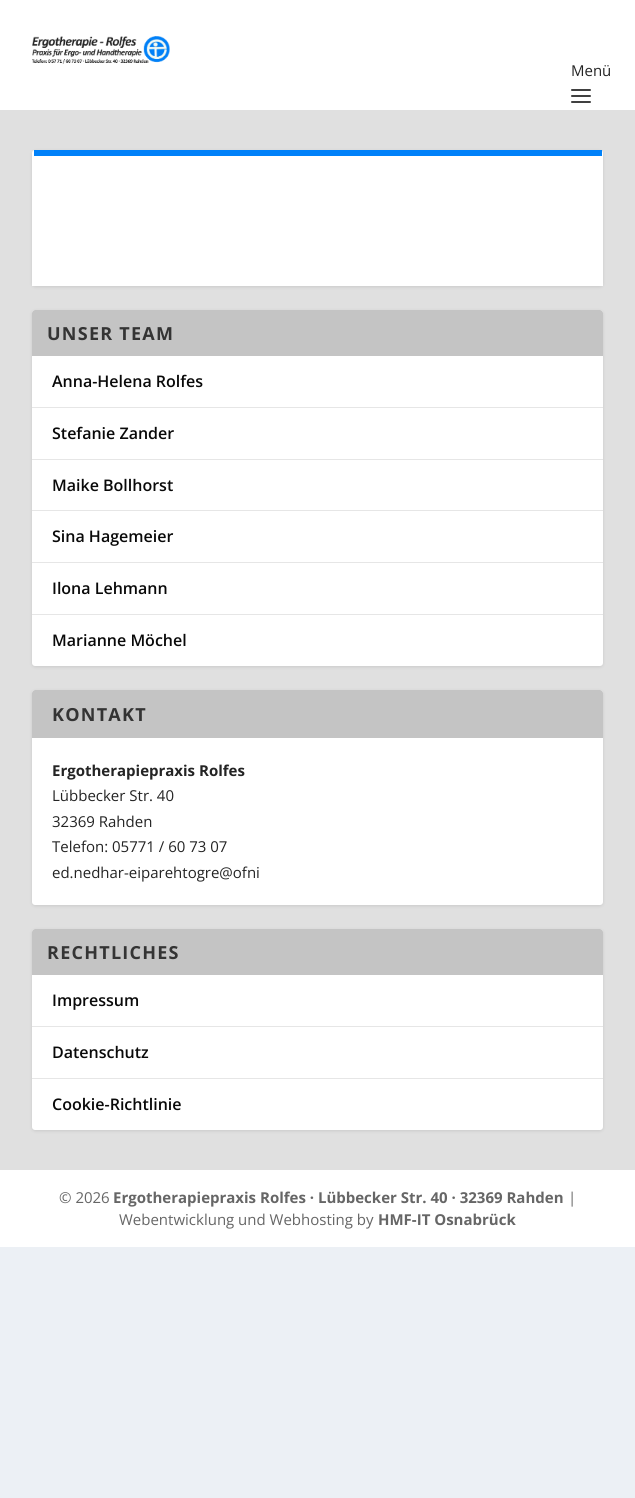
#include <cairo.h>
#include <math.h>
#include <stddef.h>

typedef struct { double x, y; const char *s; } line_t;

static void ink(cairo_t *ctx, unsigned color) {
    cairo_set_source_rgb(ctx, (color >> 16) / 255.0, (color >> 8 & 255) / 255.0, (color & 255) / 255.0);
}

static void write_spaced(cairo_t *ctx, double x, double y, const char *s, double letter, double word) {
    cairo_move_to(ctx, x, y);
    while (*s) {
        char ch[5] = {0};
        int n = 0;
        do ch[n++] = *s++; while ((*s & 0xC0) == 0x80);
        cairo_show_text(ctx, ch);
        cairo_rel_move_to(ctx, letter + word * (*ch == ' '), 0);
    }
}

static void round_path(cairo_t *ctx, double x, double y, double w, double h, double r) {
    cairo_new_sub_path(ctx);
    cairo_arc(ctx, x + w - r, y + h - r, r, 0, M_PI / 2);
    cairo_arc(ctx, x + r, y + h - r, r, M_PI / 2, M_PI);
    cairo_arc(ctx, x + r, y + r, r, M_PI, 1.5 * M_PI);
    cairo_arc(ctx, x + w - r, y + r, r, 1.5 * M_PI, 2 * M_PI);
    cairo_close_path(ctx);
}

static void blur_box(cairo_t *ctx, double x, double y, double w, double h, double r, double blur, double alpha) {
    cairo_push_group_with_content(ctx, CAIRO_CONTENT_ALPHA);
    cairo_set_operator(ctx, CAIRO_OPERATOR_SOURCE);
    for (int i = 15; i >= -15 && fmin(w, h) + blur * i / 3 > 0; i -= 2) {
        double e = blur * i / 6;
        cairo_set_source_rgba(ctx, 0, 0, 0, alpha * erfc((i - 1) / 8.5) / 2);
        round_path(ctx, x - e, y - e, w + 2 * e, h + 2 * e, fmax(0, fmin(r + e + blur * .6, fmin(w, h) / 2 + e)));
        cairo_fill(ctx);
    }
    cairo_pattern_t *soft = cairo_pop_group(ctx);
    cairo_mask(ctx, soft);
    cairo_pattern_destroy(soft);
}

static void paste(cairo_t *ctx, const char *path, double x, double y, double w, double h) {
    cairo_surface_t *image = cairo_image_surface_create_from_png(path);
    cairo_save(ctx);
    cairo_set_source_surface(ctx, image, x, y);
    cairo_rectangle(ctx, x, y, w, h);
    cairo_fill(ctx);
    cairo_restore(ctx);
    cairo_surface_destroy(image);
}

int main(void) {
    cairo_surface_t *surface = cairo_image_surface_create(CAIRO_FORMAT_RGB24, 635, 1498);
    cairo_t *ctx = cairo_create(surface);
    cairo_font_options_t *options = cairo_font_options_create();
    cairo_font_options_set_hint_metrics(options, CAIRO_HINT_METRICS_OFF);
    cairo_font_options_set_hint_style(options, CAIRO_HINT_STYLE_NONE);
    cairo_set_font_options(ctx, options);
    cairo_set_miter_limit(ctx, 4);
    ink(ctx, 0xECF0F5);
    cairo_paint(ctx);
    ink(ctx, 0xE0E0E0);
    cairo_rectangle(ctx, 0, 110, 635, 1060);
    cairo_fill(ctx);
    ink(ctx, 0xFFFFFF);
    cairo_rectangle(ctx, 0, 0, 635, 110);
    cairo_fill(ctx);
    paste(ctx, "media/1.png", 32, 36, 138, 28);
    cairo_select_font_face(ctx, "Open Sans", CAIRO_FONT_SLANT_NORMAL, CAIRO_FONT_WEIGHT_NORMAL);
    cairo_set_font_size(ctx, 15);
    ink(ctx, 0x242424);
    cairo_move_to(ctx, 571, 76);
    cairo_show_text(ctx, "Menü");
    ink(ctx, 0x404040);
    round_path(ctx, 571, 89, 20, 2, 1);
    cairo_fill(ctx);
    round_path(ctx, 571, 95, 20, 2, 1);
    cairo_fill(ctx);
    round_path(ctx, 571, 101, 20, 2, 1);
    cairo_fill(ctx);
    ink(ctx, 0x000000);
    blur_box(ctx, 32, 151, 571, 136, 3, 1.5, 0.1);
    ink(ctx, 0xFFFFFF);
    round_path(ctx, 32, 150, 571, 136, 3);
    cairo_fill(ctx);
    ink(ctx, 0x0081F9);
    cairo_rectangle(ctx, 34, 150, 568, 6);
    cairo_fill(ctx);
    ink(ctx, 0xFFFFFF);
    cairo_rectangle(ctx, 32, 283, 571, 3);
    cairo_fill(ctx);
    ink(ctx, 0x000000);
    blur_box(ctx, 32, 311, 571, 356, 3, 1.5, 0.1);
    ink(ctx, 0xFFFFFF);
    round_path(ctx, 32, 310, 571, 356, 3);
    cairo_fill(ctx);
    ink(ctx, 0xC4C4C4);
    cairo_new_path(ctx);
    cairo_move_to(ctx, 35, 310);
    cairo_line_to(ctx, 600, 310);
    cairo_curve_to(ctx, 601.5, 310, 603, 311.5, 603, 313);
    cairo_line_to(ctx, 603, 356);
    cairo_line_to(ctx, 32, 356);
    cairo_line_to(ctx, 32, 313);
    cairo_curve_to(ctx, 32, 311.5, 33.5, 310, 35, 310);
    cairo_close_path(ctx);
    cairo_fill(ctx);
    cairo_select_font_face(ctx, "Open Sans", CAIRO_FONT_SLANT_NORMAL, CAIRO_FONT_WEIGHT_BOLD);
    cairo_set_font_size(ctx, 18);
    ink(ctx, 0x343434);
    write_spaced(ctx, 47, 340, "UNSER TEAM", 1.25, 0);
    ink(ctx, 0xE6E6E6);
    cairo_rectangle(ctx, 32, 407, 571, 1);
    cairo_fill(ctx);
    cairo_select_font_face(ctx, "Open Sans SemiBold", CAIRO_FONT_SLANT_NORMAL, CAIRO_FONT_WEIGHT_NORMAL);
    cairo_set_font_size(ctx, 16);
    ink(ctx, 0x090909);
    cairo_move_to(ctx, 52, 387);
    cairo_show_text(ctx, "Anna-Helena Rolfes");
    ink(ctx, 0xE6E6E6);
    cairo_rectangle(ctx, 32, 459, 571, 1);
    cairo_fill(ctx);
    ink(ctx, 0x090909);
    cairo_move_to(ctx, 52, 439);
    cairo_show_text(ctx, "Stefanie Zander");
    ink(ctx, 0xE6E6E6);
    cairo_rectangle(ctx, 32, 510, 571, 1);
    cairo_fill(ctx);
    ink(ctx, 0x090909);
    cairo_move_to(ctx, 52, 491);
    cairo_show_text(ctx, "Maike Bollhorst");
    ink(ctx, 0xE6E6E6);
    cairo_rectangle(ctx, 32, 562, 571, 1);
    cairo_fill(ctx);
    ink(ctx, 0x090909);
    cairo_move_to(ctx, 52, 542);
    cairo_show_text(ctx, "Sina Hagemeier");
    ink(ctx, 0xE6E6E6);
    cairo_rectangle(ctx, 32, 614, 571, 1);
    cairo_fill(ctx);
    ink(ctx, 0x090909);
    cairo_move_to(ctx, 52, 594);
    cairo_show_text(ctx, "Ilona Lehmann");
    cairo_move_to(ctx, 52, 646);
    cairo_show_text(ctx, "Marianne Möchel");
    ink(ctx, 0x000000);
    blur_box(ctx, 32, 691, 571, 215, 3, 1.5, 0.1);
    ink(ctx, 0xFFFFFF);
    round_path(ctx, 32, 690, 571, 215, 3);
    cairo_fill(ctx);
    ink(ctx, 0xC4C4C4);
    cairo_new_path(ctx);
    cairo_move_to(ctx, 35, 690);
    cairo_line_to(ctx, 600, 690);
    cairo_curve_to(ctx, 601.5, 690, 603, 691.5, 603, 693);
    cairo_line_to(ctx, 603, 738);
    cairo_line_to(ctx, 32, 738);
    cairo_line_to(ctx, 32, 693);
    cairo_curve_to(ctx, 32, 691.5, 33.5, 690, 35, 690);
    cairo_close_path(ctx);
    cairo_fill(ctx);
    cairo_select_font_face(ctx, "Open Sans", CAIRO_FONT_SLANT_NORMAL, CAIRO_FONT_WEIGHT_BOLD);
    cairo_set_font_size(ctx, 18);
    ink(ctx, 0x343434);
    write_spaced(ctx, 52, 721, "KONTAKT", 1.25, 0);
    cairo_set_font_size(ctx, 15);
    ink(ctx, 0x242424);
    cairo_move_to(ctx, 52, 776);
    cairo_show_text(ctx, "Ergotherapiepraxis Rolfes");
    cairo_select_font_face(ctx, "Open Sans", CAIRO_FONT_SLANT_NORMAL, CAIRO_FONT_WEIGHT_NORMAL);
    {
        static const line_t items[] = {
            {52, 801, "Lübbecker Str. 40"},
            {52, 827, "32369 Rahden"},
            {52, 852, "Telefon: 05771 / 60 73 07"},
            {52, 878, "ed.nedhar-eiparehtogre@ofni"},
        };
        for (size_t i = 0; i < sizeof items / sizeof *items; i++) {
            cairo_move_to(ctx, items[i].x, items[i].y);
            cairo_show_text(ctx, items[i].s);
        }
    }
    ink(ctx, 0x000000);
    blur_box(ctx, 32, 930, 571, 201, 3, 1.5, 0.1);
    ink(ctx, 0xFFFFFF);
    round_path(ctx, 32, 929, 571, 201, 3);
    cairo_fill(ctx);
    ink(ctx, 0xC4C4C4);
    cairo_new_path(ctx);
    cairo_move_to(ctx, 35, 929);
    cairo_line_to(ctx, 600, 929);
    cairo_curve_to(ctx, 601.5, 929, 603, 930.5, 603, 932);
    cairo_line_to(ctx, 603, 975);
    cairo_line_to(ctx, 32, 975);
    cairo_line_to(ctx, 32, 932);
    cairo_curve_to(ctx, 32, 930.5, 33.5, 929, 35, 929);
    cairo_close_path(ctx);
    cairo_fill(ctx);
    cairo_select_font_face(ctx, "Open Sans", CAIRO_FONT_SLANT_NORMAL, CAIRO_FONT_WEIGHT_BOLD);
    cairo_set_font_size(ctx, 18);
    ink(ctx, 0x343434);
    write_spaced(ctx, 47, 959, "RECHTLICHES", 1.25, 0);
    ink(ctx, 0xE6E6E6);
    cairo_rectangle(ctx, 32, 1026, 571, 1);
    cairo_fill(ctx);
    cairo_select_font_face(ctx, "Open Sans SemiBold", CAIRO_FONT_SLANT_NORMAL, CAIRO_FONT_WEIGHT_NORMAL);
    cairo_set_font_size(ctx, 16);
    ink(ctx, 0x090909);
    cairo_move_to(ctx, 52, 1006);
    cairo_show_text(ctx, "Impressum");
    ink(ctx, 0xE6E6E6);
    cairo_rectangle(ctx, 32, 1078, 571, 1);
    cairo_fill(ctx);
    ink(ctx, 0x090909);
    cairo_move_to(ctx, 52, 1058);
    cairo_show_text(ctx, "Datenschutz");
    cairo_move_to(ctx, 52, 1110);
    cairo_show_text(ctx, "Cookie-Richtlinie");
    ink(ctx, 0xFFFFFF);
    cairo_rectangle(ctx, 0, 1170, 635, 77);
    cairo_fill(ctx);
    cairo_select_font_face(ctx, "Open Sans", CAIRO_FONT_SLANT_NORMAL, CAIRO_FONT_WEIGHT_NORMAL);
    cairo_set_font_size(ctx, 15);
    ink(ctx, 0x666666);
    cairo_move_to(ctx, 59, 1203);
    cairo_show_text(ctx, "© 2026");
    cairo_select_font_face(ctx, "Open Sans", CAIRO_FONT_SLANT_NORMAL, CAIRO_FONT_WEIGHT_BOLD);
    cairo_move_to(ctx, 113, 1203);
    cairo_show_text(ctx, "Ergotherapiepraxis Rolfes · Lübbecker Str. 40 · 32369 Rahden");
    cairo_select_font_face(ctx, "Open Sans", CAIRO_FONT_SLANT_NORMAL, CAIRO_FONT_WEIGHT_NORMAL);
    cairo_move_to(ctx, 568, 1203);
    cairo_show_text(ctx, "|");
    cairo_move_to(ctx, 119, 1225);
    cairo_show_text(ctx, "Webentwicklung und Webhosting by");
    cairo_select_font_face(ctx, "Open Sans", CAIRO_FONT_SLANT_NORMAL, CAIRO_FONT_WEIGHT_BOLD);
    cairo_move_to(ctx, 378, 1225);
    cairo_show_text(ctx, "HMF-IT Osnabrück");
    cairo_surface_write_to_png(surface, "image.png");
    cairo_font_options_destroy(options);
    cairo_destroy(ctx);
    cairo_surface_destroy(surface);
    return 0;
}
